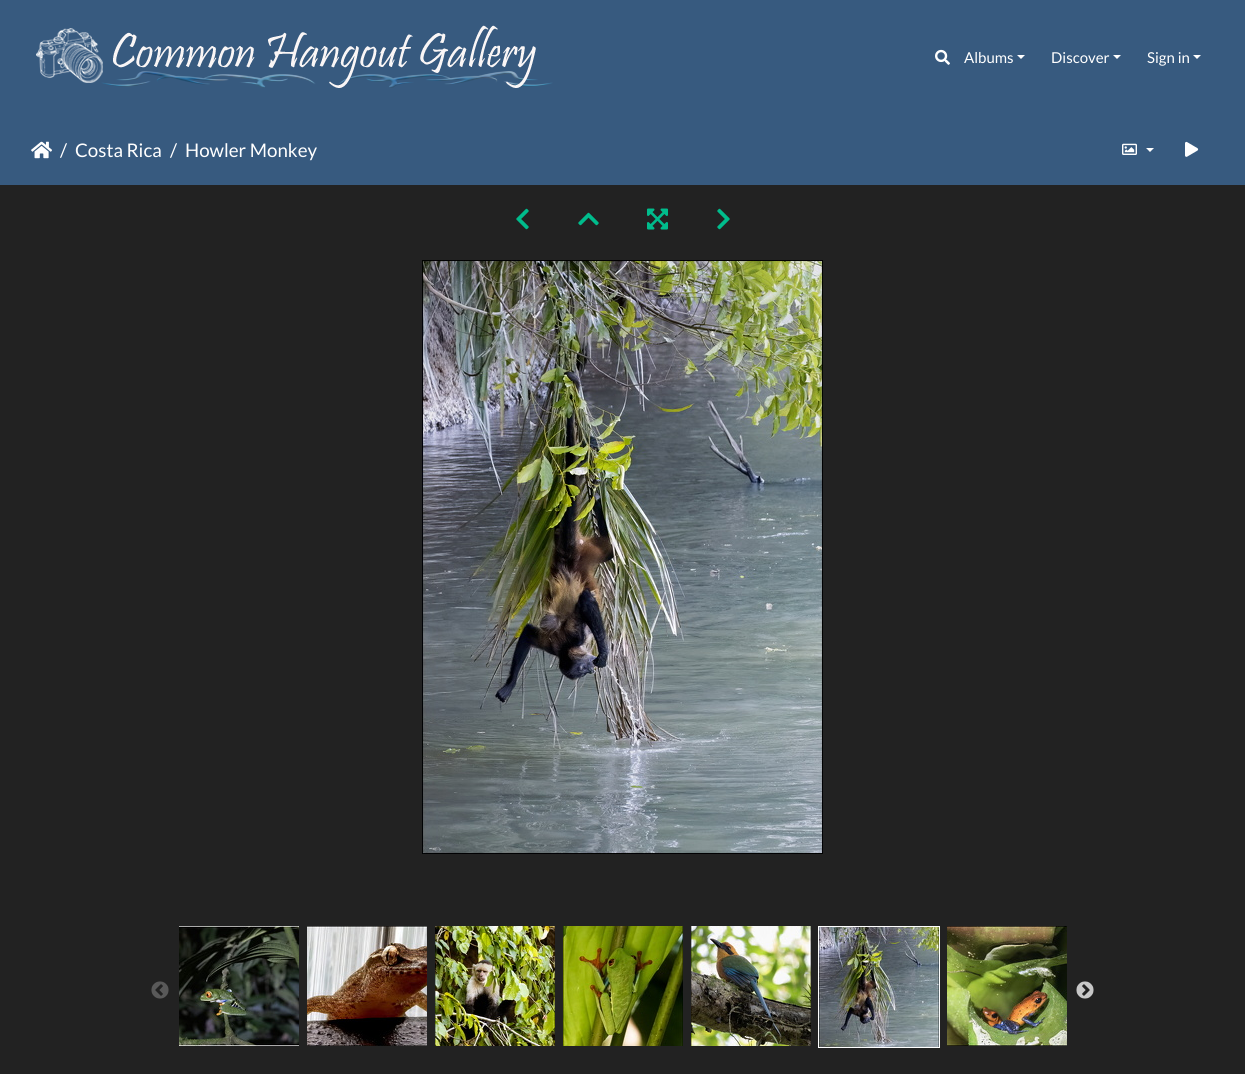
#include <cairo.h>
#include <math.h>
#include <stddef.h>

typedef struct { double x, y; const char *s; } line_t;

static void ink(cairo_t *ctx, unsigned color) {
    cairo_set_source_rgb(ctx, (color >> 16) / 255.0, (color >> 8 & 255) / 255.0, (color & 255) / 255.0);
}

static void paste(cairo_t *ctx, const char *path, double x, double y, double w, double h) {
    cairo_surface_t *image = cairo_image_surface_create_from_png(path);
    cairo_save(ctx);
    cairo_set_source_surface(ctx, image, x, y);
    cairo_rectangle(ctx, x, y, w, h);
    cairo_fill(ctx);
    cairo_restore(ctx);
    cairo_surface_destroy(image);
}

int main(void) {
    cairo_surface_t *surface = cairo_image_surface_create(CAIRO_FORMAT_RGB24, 1245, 1074);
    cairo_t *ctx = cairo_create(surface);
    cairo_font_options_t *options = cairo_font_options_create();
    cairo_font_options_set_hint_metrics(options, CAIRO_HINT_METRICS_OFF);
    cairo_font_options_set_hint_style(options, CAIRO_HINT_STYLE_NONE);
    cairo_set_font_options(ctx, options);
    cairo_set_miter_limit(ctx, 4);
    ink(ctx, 0x222222);
    cairo_paint(ctx);
    ink(ctx, 0x375A7F);
    cairo_rectangle(ctx, 0, 0, 1245, 185);
    cairo_fill(ctx);
    paste(ctx, "media/1.png", 36, 25, 517, 63);
    paste(ctx, "media/2.png", 935, 49, 15, 16);
    cairo_select_font_face(ctx, "Lato", CAIRO_FONT_SLANT_NORMAL, CAIRO_FONT_WEIGHT_NORMAL);
    cairo_set_font_size(ctx, 15);
    ink(ctx, 0xFFFFFF);
    cairo_move_to(ctx, 964, 63);
    cairo_show_text(ctx, "Albums");
    cairo_new_path(ctx);
    cairo_move_to(ctx, 1017, 55);
    cairo_line_to(ctx, 1025, 55);
    cairo_line_to(ctx, 1021, 59);
    cairo_close_path(ctx);
    cairo_fill(ctx);
    cairo_move_to(ctx, 1051, 63);
    cairo_show_text(ctx, "Discover");
    cairo_new_path(ctx);
    cairo_move_to(ctx, 1113, 55);
    cairo_line_to(ctx, 1121, 55);
    cairo_line_to(ctx, 1117, 59);
    cairo_close_path(ctx);
    cairo_fill(ctx);
    cairo_move_to(ctx, 1147, 63);
    cairo_show_text(ctx, "Sign in");
    cairo_new_path(ctx);
    cairo_move_to(ctx, 1193, 55);
    cairo_line_to(ctx, 1201, 55);
    cairo_line_to(ctx, 1197, 59);
    cairo_close_path(ctx);
    cairo_fill(ctx);
    paste(ctx, "media/3.png", 31, 141, 21, 18);
    cairo_set_font_size(ctx, 18.75);
    {
        static const line_t items[] = {
            {60, 157, "/"},
            {75, 157, "Costa Rica"},
            {170, 157, "/"},
            {185, 157, "Howler Monkey"},
        };
        for (size_t i = 0; i < sizeof items / sizeof *items; i++) {
            cairo_move_to(ctx, items[i].x, items[i].y);
            cairo_show_text(ctx, items[i].s);
        }
    }
    paste(ctx, "media/4.png", 1122, 143, 15, 12);
    cairo_new_path(ctx);
    cairo_move_to(ctx, 1146, 148);
    cairo_line_to(ctx, 1154, 148);
    cairo_line_to(ctx, 1150, 152);
    cairo_close_path(ctx);
    cairo_fill(ctx);
    paste(ctx, "media/5.png", 1185, 141, 14, 16);
    paste(ctx, "media/6.png", 516, 208, 13, 22);
    paste(ctx, "media/7.png", 578, 212, 21, 14);
    paste(ctx, "media/8.png", 647, 208, 21, 22);
    paste(ctx, "media/9.png", 717, 208, 13, 22);
    paste(ctx, "media/10.png", 422, 260, 401, 594);
    paste(ctx, "media/11.png", 151, 981, 18, 18);
    paste(ctx, "media/12.png", 179, 926, 120, 120);
    paste(ctx, "media/13.png", 307, 926, 120, 120);
    paste(ctx, "media/14.png", 435, 926, 120, 120);
    paste(ctx, "media/15.png", 563, 926, 120, 120);
    paste(ctx, "media/16.png", 691, 926, 120, 120);
    cairo_rectangle(ctx, 818.5, 926.5, 121, 121);
    cairo_set_line_width(ctx, 1);
    cairo_stroke(ctx);
    paste(ctx, "media/17.png", 819, 927, 120, 120);
    paste(ctx, "media/18.png", 947, 926, 120, 120);
    paste(ctx, "media/19.png", 1076, 981, 18, 18);
    cairo_surface_write_to_png(surface, "image.png");
    cairo_font_options_destroy(options);
    cairo_destroy(ctx);
    cairo_surface_destroy(surface);
    return 0;
}
